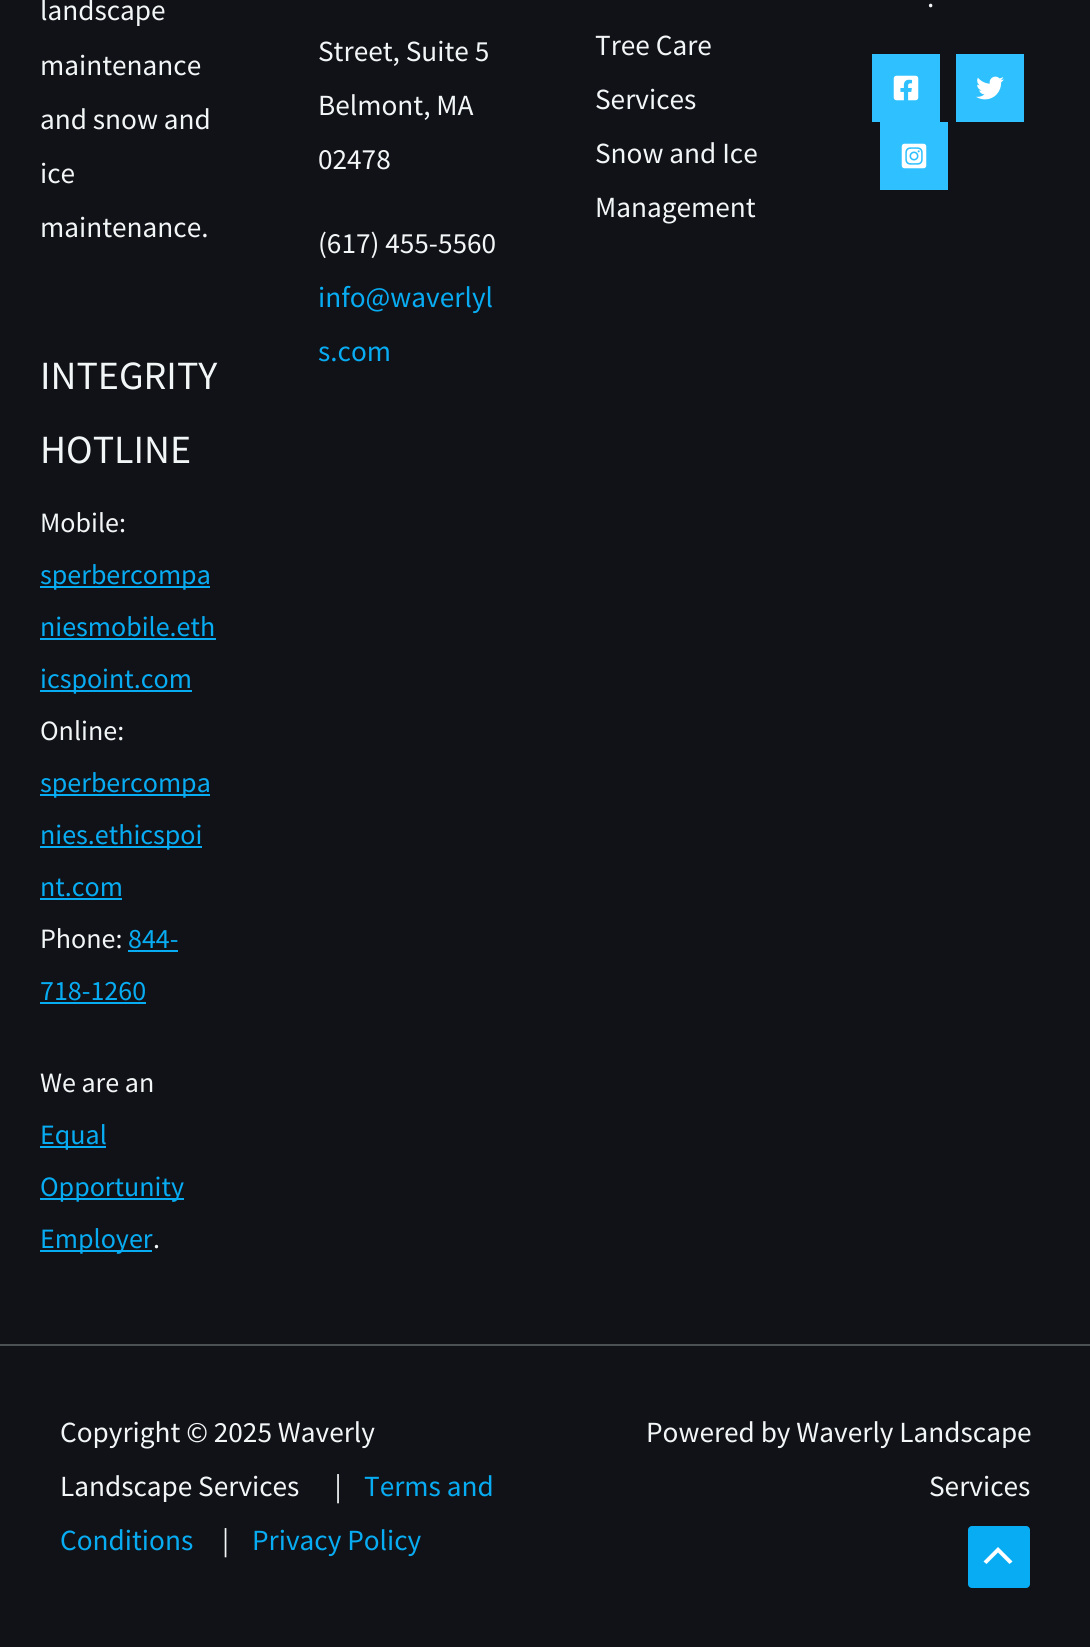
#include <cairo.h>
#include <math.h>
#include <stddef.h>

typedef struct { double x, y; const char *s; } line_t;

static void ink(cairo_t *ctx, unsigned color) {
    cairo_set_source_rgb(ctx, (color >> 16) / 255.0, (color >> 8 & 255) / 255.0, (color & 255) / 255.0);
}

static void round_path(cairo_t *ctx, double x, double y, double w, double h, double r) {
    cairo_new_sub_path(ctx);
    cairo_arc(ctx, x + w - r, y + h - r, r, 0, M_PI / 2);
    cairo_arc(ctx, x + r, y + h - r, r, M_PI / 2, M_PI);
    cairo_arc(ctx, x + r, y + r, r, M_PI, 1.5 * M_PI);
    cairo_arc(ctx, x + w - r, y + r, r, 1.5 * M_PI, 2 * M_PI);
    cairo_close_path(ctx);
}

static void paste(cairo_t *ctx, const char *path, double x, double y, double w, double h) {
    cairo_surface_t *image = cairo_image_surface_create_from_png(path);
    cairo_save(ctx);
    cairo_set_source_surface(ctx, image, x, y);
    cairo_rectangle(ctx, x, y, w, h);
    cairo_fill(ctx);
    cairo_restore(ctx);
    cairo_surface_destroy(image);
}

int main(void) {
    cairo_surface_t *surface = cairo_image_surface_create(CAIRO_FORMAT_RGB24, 1090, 1647);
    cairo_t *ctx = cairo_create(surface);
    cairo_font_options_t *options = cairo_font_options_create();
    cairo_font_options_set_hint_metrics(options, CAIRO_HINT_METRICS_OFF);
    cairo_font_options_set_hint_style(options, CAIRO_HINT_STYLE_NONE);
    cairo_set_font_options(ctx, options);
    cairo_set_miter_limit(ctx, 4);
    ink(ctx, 0x101218);
    cairo_paint(ctx);
    cairo_select_font_face(ctx, "Source Sans Pro", CAIRO_FONT_SLANT_NORMAL, CAIRO_FONT_WEIGHT_NORMAL);
    cairo_set_font_size(ctx, 29.25);
    ink(ctx, 0xF3F6F6);
    {
        static const line_t items[] = {
            {40, 20, "landscape"},
            {40, 75, "maintenance"},
            {40, 129, "and snow and"},
            {40, 183, "ice"},
            {40, 237, "maintenance."},
        };
        for (size_t i = 0; i < sizeof items / sizeof *items; i++) {
            cairo_move_to(ctx, items[i].x, items[i].y);
            cairo_show_text(ctx, items[i].s);
        }
    }
    cairo_set_font_size(ctx, 40);
    cairo_move_to(ctx, 40, 389);
    cairo_show_text(ctx, "INTEGRITY");
    cairo_move_to(ctx, 40, 463);
    cairo_show_text(ctx, "HOTLINE");
    cairo_set_font_size(ctx, 28);
    cairo_move_to(ctx, 40, 532);
    cairo_show_text(ctx, "Mobile:");
    ink(ctx, 0x08ACF2);
    cairo_rectangle(ctx, 40, 586, 170, 2);
    cairo_fill(ctx);
    cairo_move_to(ctx, 40, 584);
    cairo_show_text(ctx, "sperbercompa");
    cairo_move_to(ctx, 40, 636);
    cairo_show_text(ctx, "niesmobile.eth");
    cairo_rectangle(ctx, 40, 638, 176, 2);
    cairo_fill(ctx);
    cairo_rectangle(ctx, 40, 690, 152, 2);
    cairo_fill(ctx);
    cairo_move_to(ctx, 40, 688);
    cairo_show_text(ctx, "icspoint.com");
    ink(ctx, 0xF3F6F6);
    cairo_move_to(ctx, 40, 740);
    cairo_show_text(ctx, "Online:");
    ink(ctx, 0x08ACF2);
    cairo_rectangle(ctx, 40, 794, 170, 2);
    cairo_fill(ctx);
    cairo_move_to(ctx, 40, 792);
    cairo_show_text(ctx, "sperbercompa");
    cairo_rectangle(ctx, 40, 846, 162, 2);
    cairo_fill(ctx);
    cairo_move_to(ctx, 40, 844);
    cairo_show_text(ctx, "nies.ethicspoi");
    cairo_move_to(ctx, 40, 896);
    cairo_show_text(ctx, "nt.com");
    cairo_rectangle(ctx, 40, 898, 82, 2);
    cairo_fill(ctx);
    ink(ctx, 0xF3F6F6);
    cairo_move_to(ctx, 40, 948);
    cairo_show_text(ctx, "Phone:");
    ink(ctx, 0x08ACF2);
    cairo_move_to(ctx, 128, 948);
    cairo_show_text(ctx, "844-");
    cairo_rectangle(ctx, 128, 950, 50, 2);
    cairo_fill(ctx);
    cairo_move_to(ctx, 40, 1000);
    cairo_show_text(ctx, "718-1260");
    cairo_rectangle(ctx, 40, 1002, 106, 2);
    cairo_fill(ctx);
    ink(ctx, 0xF3F6F6);
    cairo_move_to(ctx, 40, 1092);
    cairo_show_text(ctx, "We are an");
    ink(ctx, 0x08ACF2);
    cairo_rectangle(ctx, 40, 1146, 66, 2);
    cairo_fill(ctx);
    cairo_move_to(ctx, 40, 1144);
    cairo_show_text(ctx, "Equal");
    cairo_rectangle(ctx, 40, 1198, 144, 2);
    cairo_fill(ctx);
    cairo_move_to(ctx, 40, 1196);
    cairo_show_text(ctx, "Opportunity");
    cairo_rectangle(ctx, 40, 1250, 112, 2);
    cairo_fill(ctx);
    cairo_move_to(ctx, 40, 1248);
    cairo_show_text(ctx, "Employer");
    ink(ctx, 0xF3F6F6);
    cairo_move_to(ctx, 153, 1248);
    cairo_show_text(ctx, ".");
    cairo_set_font_size(ctx, 29.25);
    cairo_move_to(ctx, 927, 7);
    cairo_show_text(ctx, ".");
    ink(ctx, 0x2FC1FF);
    cairo_rectangle(ctx, 872, 54, 68, 68);
    cairo_fill(ctx);
    paste(ctx, "media/1.png", 893, 75, 26, 26);
    cairo_rectangle(ctx, 956, 54, 68, 68);
    cairo_fill(ctx);
    paste(ctx, "media/2.png", 976, 76, 28, 24);
    cairo_rectangle(ctx, 880, 122, 68, 68);
    cairo_fill(ctx);
    paste(ctx, "media/3.png", 901, 143, 26, 26);
    ink(ctx, 0xF3F6F6);
    {
        static const line_t items[] = {
            {318, 61, "Street, Suite 5"},
            {318, 115, "Belmont, MA"},
            {318, 169, "02478"},
            {318, 253, "(617) 455-5560"},
        };
        for (size_t i = 0; i < sizeof items / sizeof *items; i++) {
            cairo_move_to(ctx, items[i].x, items[i].y);
            cairo_show_text(ctx, items[i].s);
        }
    }
    ink(ctx, 0x08ACF2);
    cairo_move_to(ctx, 318, 307);
    cairo_show_text(ctx, "info@waverlyl");
    cairo_move_to(ctx, 318, 361);
    cairo_show_text(ctx, "s.com");
    ink(ctx, 0xF3F6F6);
    {
        static const line_t items[] = {
            {595, 55, "Tree Care"},
            {595, 109, "Services"},
            {595, 163, "Snow and Ice"},
            {595, 217, "Management"},
        };
        for (size_t i = 0; i < sizeof items / sizeof *items; i++) {
            cairo_move_to(ctx, items[i].x, items[i].y);
            cairo_show_text(ctx, items[i].s);
        }
    }
    ink(ctx, 0x4C5253);
    cairo_rectangle(ctx, 0, 1344, 1090, 2);
    cairo_fill(ctx);
    ink(ctx, 0xF3F6F6);
    cairo_move_to(ctx, 60, 1442);
    cairo_show_text(ctx, "Copyright © 2025 Waverly");
    cairo_move_to(ctx, 60, 1496);
    cairo_show_text(ctx, "Landscape Services      |");
    ink(ctx, 0x08ACF2);
    cairo_move_to(ctx, 364, 1496);
    cairo_show_text(ctx, "Terms and");
    cairo_move_to(ctx, 60, 1550);
    cairo_show_text(ctx, "Conditions");
    ink(ctx, 0xF3F6F6);
    cairo_move_to(ctx, 222, 1550);
    cairo_show_text(ctx, "|");
    ink(ctx, 0x08ACF2);
    cairo_move_to(ctx, 252, 1550);
    cairo_show_text(ctx, "Privacy Policy");
    ink(ctx, 0xF3F6F6);
    cairo_move_to(ctx, 646, 1442);
    cairo_show_text(ctx, "Powered by Waverly Landscape");
    cairo_move_to(ctx, 929, 1496);
    cairo_show_text(ctx, "Services");
    ink(ctx, 0x08ACF2);
    round_path(ctx, 968, 1526, 62, 62, 4);
    cairo_fill(ctx);
    ink(ctx, 0xFFFFFF);
    cairo_new_path(ctx);
    cairo_move_to(ctx, 1012.5, 1561.5);
    cairo_line_to(ctx, 998, 1547);
    cairo_line_to(ctx, 983.5, 1561.5);
    cairo_line_to(ctx, 986.5, 1564);
    cairo_line_to(ctx, 998, 1552.5);
    cairo_line_to(ctx, 1009.5, 1564);
    cairo_close_path(ctx);
    cairo_fill(ctx);
    cairo_surface_write_to_png(surface, "image.png");
    cairo_font_options_destroy(options);
    cairo_destroy(ctx);
    cairo_surface_destroy(surface);
    return 0;
}
